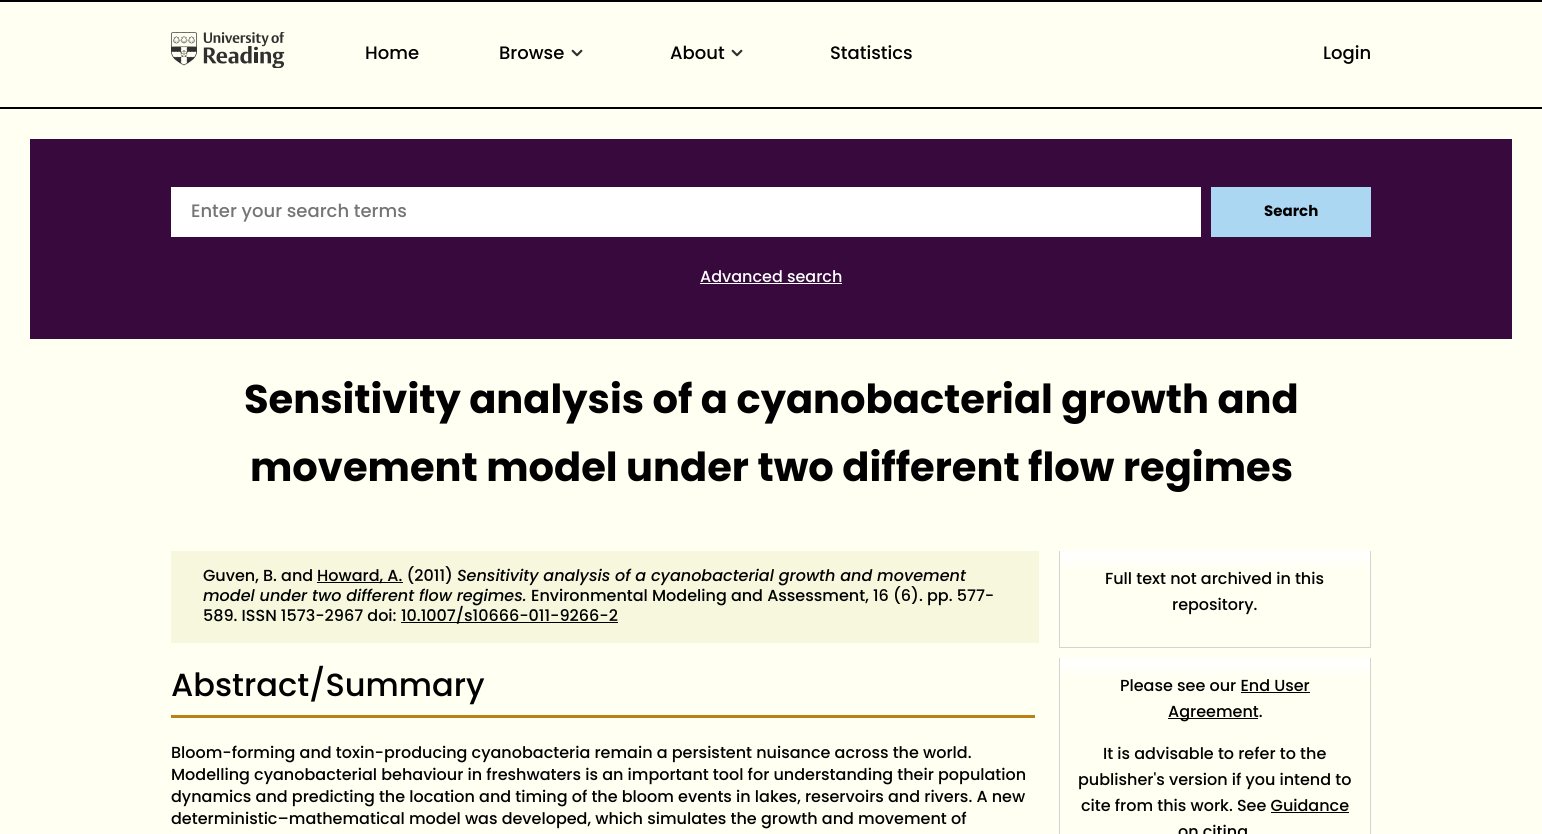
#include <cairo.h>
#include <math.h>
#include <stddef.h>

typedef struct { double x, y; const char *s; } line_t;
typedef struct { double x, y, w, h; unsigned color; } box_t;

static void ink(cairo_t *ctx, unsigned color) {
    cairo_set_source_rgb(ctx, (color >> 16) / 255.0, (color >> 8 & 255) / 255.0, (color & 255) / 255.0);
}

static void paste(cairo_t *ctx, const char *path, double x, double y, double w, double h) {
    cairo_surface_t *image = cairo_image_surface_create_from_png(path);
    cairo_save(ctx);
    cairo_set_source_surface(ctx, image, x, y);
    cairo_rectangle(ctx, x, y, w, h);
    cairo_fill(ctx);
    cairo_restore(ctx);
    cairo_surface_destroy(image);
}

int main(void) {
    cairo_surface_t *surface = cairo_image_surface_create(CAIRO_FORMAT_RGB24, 1542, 834);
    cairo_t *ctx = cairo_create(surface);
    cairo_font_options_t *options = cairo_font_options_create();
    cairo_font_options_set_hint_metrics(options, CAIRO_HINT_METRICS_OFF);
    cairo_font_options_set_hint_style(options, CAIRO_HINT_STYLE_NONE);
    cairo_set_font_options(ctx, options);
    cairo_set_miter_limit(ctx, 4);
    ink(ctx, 0xFFFFF2);
    cairo_paint(ctx);
    ink(ctx, 0x000000);
    cairo_rectangle(ctx, 0, 0, 1542, 2);
    cairo_fill(ctx);
    cairo_rectangle(ctx, 0, 107, 1542, 2);
    cairo_fill(ctx);
    paste(ctx, "media/1.png", 171, 32, 114, 36);
    cairo_select_font_face(ctx, "Poppins Medium", CAIRO_FONT_SLANT_NORMAL, CAIRO_FONT_WEIGHT_NORMAL);
    cairo_set_font_size(ctx, 18);
    cairo_move_to(ctx, 365, 59);
    cairo_show_text(ctx, "Home");
    cairo_move_to(ctx, 499, 59);
    cairo_show_text(ctx, "Browse");
    paste(ctx, "media/2.png", 571, 49, 12, 8);
    cairo_move_to(ctx, 670, 59);
    cairo_show_text(ctx, "About");
    paste(ctx, "media/2.png", 731, 49, 12, 8);
    cairo_move_to(ctx, 830, 59);
    cairo_show_text(ctx, "Statistics");
    cairo_move_to(ctx, 1323, 59);
    cairo_show_text(ctx, "Login");
    ink(ctx, 0x37093D);
    cairo_rectangle(ctx, 30, 139, 1482, 200);
    cairo_fill(ctx);
    ink(ctx, 0xFFFFFF);
    cairo_rectangle(ctx, 171, 187, 1030, 50);
    cairo_fill(ctx);
    ink(ctx, 0x757575);
    cairo_move_to(ctx, 191, 217);
    cairo_show_text(ctx, "Enter your search terms");
    ink(ctx, 0xACD7F2);
    cairo_rectangle(ctx, 1211, 187, 160, 50);
    cairo_fill(ctx);
    cairo_select_font_face(ctx, "Poppins", CAIRO_FONT_SLANT_NORMAL, CAIRO_FONT_WEIGHT_BOLD);
    cairo_set_font_size(ctx, 15);
    ink(ctx, 0x000000);
    cairo_move_to(ctx, 1264, 216);
    cairo_show_text(ctx, "Search");
    cairo_select_font_face(ctx, "Poppins Medium", CAIRO_FONT_SLANT_NORMAL, CAIRO_FONT_WEIGHT_NORMAL);
    cairo_set_font_size(ctx, 16);
    ink(ctx, 0xFFFFFF);
    cairo_move_to(ctx, 700, 282);
    cairo_show_text(ctx, "Advanced search");
    cairo_rectangle(ctx, 700, 283, 142, 1);
    cairo_fill(ctx);
    cairo_select_font_face(ctx, "Poppins", CAIRO_FONT_SLANT_NORMAL, CAIRO_FONT_WEIGHT_BOLD);
    cairo_set_font_size(ctx, 40);
    ink(ctx, 0x000000);
    cairo_move_to(ctx, 244, 413);
    cairo_show_text(ctx, "Sensitivity analysis of a cyanobacterial growth and");
    cairo_move_to(ctx, 250, 481);
    cairo_show_text(ctx, "movement model under two different flow regimes");
    ink(ctx, 0xF7F7DE);
    cairo_rectangle(ctx, 171, 551, 868, 92);
    cairo_fill(ctx);
    cairo_select_font_face(ctx, "Poppins Medium", CAIRO_FONT_SLANT_NORMAL, CAIRO_FONT_WEIGHT_NORMAL);
    cairo_set_font_size(ctx, 16);
    ink(ctx, 0x000000);
    cairo_move_to(ctx, 203, 581);
    cairo_show_text(ctx, "Guven, B. and");
    cairo_rectangle(ctx, 317, 582, 86, 1);
    cairo_fill(ctx);
    cairo_move_to(ctx, 317, 581);
    cairo_show_text(ctx, "Howard, A. (2011)");
    cairo_select_font_face(ctx, "Poppins Medium", CAIRO_FONT_SLANT_ITALIC, CAIRO_FONT_WEIGHT_NORMAL);
    cairo_move_to(ctx, 457, 581);
    cairo_show_text(ctx, "Sensitivity analysis of a cyanobacterial growth and movement");
    cairo_move_to(ctx, 203, 601);
    cairo_show_text(ctx, "model under two different flow regimes.");
    cairo_select_font_face(ctx, "Poppins Medium", CAIRO_FONT_SLANT_NORMAL, CAIRO_FONT_WEIGHT_NORMAL);
    cairo_move_to(ctx, 531, 601);
    cairo_show_text(ctx, "Environmental Modeling and Assessment, 16 (6). pp. 577-");
    cairo_move_to(ctx, 203, 621);
    cairo_show_text(ctx, "589. ISSN 1573-2967 doi:");
    cairo_rectangle(ctx, 401, 622, 217, 1);
    cairo_fill(ctx);
    cairo_move_to(ctx, 401, 621);
    cairo_show_text(ctx, "10.1007/s10666-011-9266-2");
    ink(ctx, 0xBB8116);
    cairo_rectangle(ctx, 171, 715, 864, 3);
    cairo_fill(ctx);
    cairo_set_font_size(ctx, 32);
    ink(ctx, 0x000000);
    cairo_move_to(ctx, 171, 696);
    cairo_show_text(ctx, "Abstract/Summary");
    cairo_set_font_size(ctx, 16);
    {
        static const line_t items[] = {
            {171, 758, "Bloom-forming and toxin-producing cyanobacteria remain a persistent nuisance across the world."},
            {171, 780, "Modelling cyanobacterial behaviour in freshwaters is an important tool for understanding their population"},
            {171, 802, "dynamics and predicting the location and timing of the bloom events in lakes, reservoirs and rivers. A new"},
            {171, 824, "deterministic–mathematical model was developed, which simulates the growth and movement of"},
        };
        for (size_t i = 0; i < sizeof items / sizeof *items; i++) {
            cairo_move_to(ctx, items[i].x, items[i].y);
            cairo_show_text(ctx, items[i].s);
        }
    }
    paste(ctx, "media/3.png", 1060, 551, 310, 17);
    {
        static const box_t items[] = {
            {1370, 551, 1, 97, 0xD4D4D4},
            {1059, 647, 312, 1, 0xD4D4D4},
            {1059, 551, 1, 97, 0xD4D4D4},
        };
        for (size_t i = 0; i < sizeof items / sizeof *items; i++) {
            ink(ctx, items[i].color);
            cairo_rectangle(ctx, items[i].x, items[i].y, items[i].w, items[i].h);
            cairo_fill(ctx);
        }
    }
    ink(ctx, 0x000000);
    cairo_move_to(ctx, 1105, 584);
    cairo_show_text(ctx, "Full text not archived in this");
    cairo_move_to(ctx, 1172, 610);
    cairo_show_text(ctx, "repository.");
    paste(ctx, "media/3.png", 1060, 658, 310, 17);
    ink(ctx, 0xD4D4D4);
    cairo_rectangle(ctx, 1370, 658, 1, 176);
    cairo_fill(ctx);
    cairo_rectangle(ctx, 1059, 658, 1, 176);
    cairo_fill(ctx);
    ink(ctx, 0x000000);
    cairo_move_to(ctx, 1120, 691);
    cairo_show_text(ctx, "Please see our End User");
    cairo_rectangle(ctx, 1168, 718, 90, 1);
    cairo_fill(ctx);
    cairo_move_to(ctx, 1168, 717);
    cairo_show_text(ctx, "Agreement.");
    cairo_rectangle(ctx, 1241, 692, 69, 1);
    cairo_fill(ctx);
    {
        static const line_t items[] = {
            {1103, 759, "It is advisable to refer to the"},
            {1078, 785, "publisher's version if you intend to"},
            {1081, 811, "cite from this work. See Guidance"},
            {1178, 837, "on citing"},
        };
        for (size_t i = 0; i < sizeof items / sizeof *items; i++) {
            cairo_move_to(ctx, items[i].x, items[i].y);
            cairo_show_text(ctx, items[i].s);
        }
    }
    cairo_rectangle(ctx, 1271, 812, 78, 1);
    cairo_fill(ctx);
    cairo_surface_write_to_png(surface, "image.png");
    cairo_font_options_destroy(options);
    cairo_destroy(ctx);
    cairo_surface_destroy(surface);
    return 0;
}
